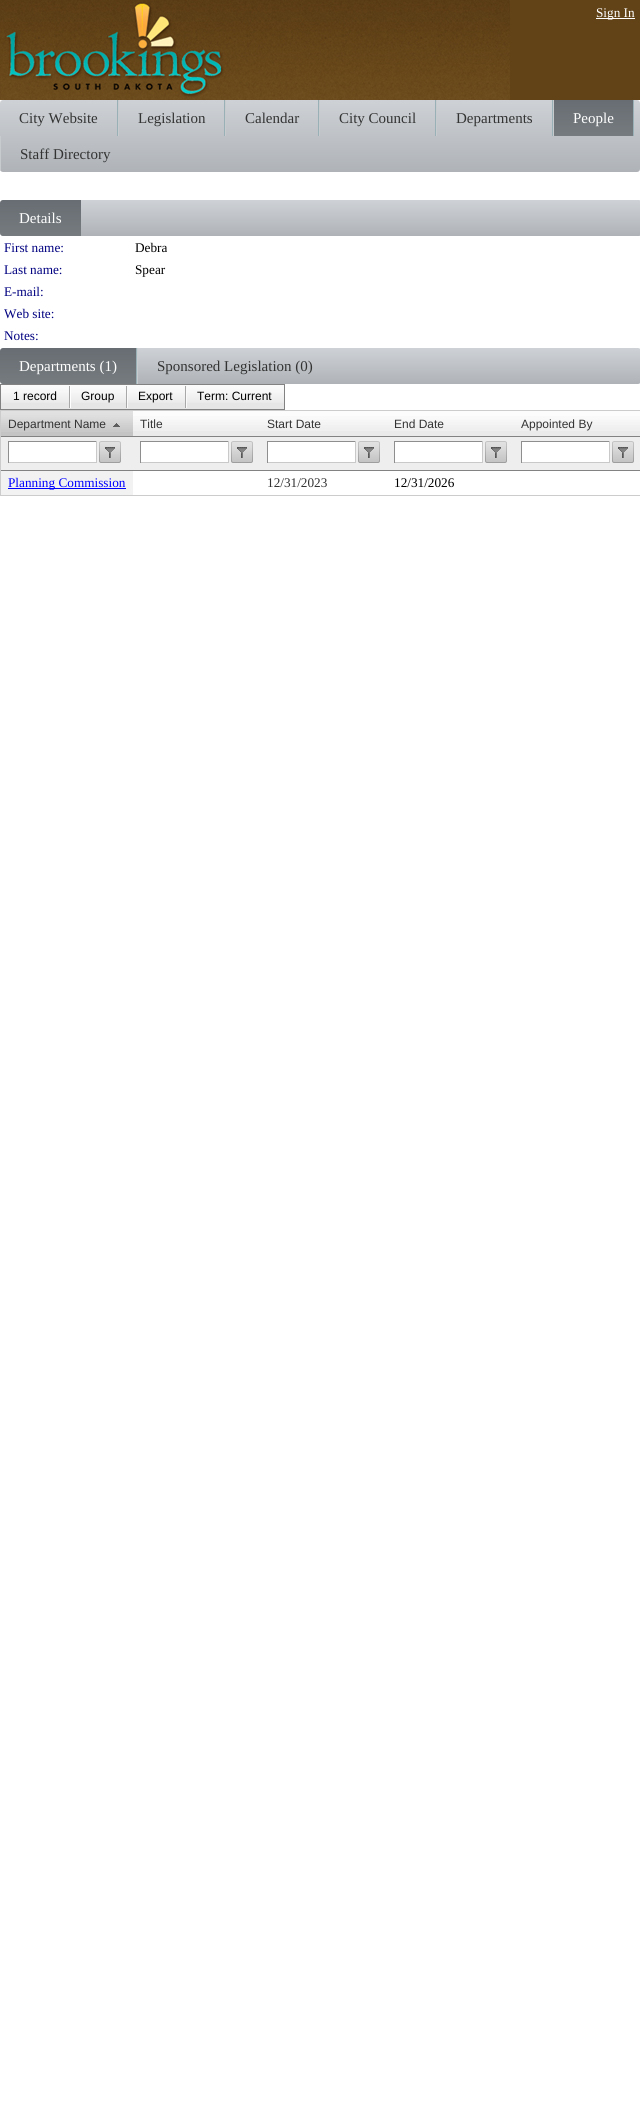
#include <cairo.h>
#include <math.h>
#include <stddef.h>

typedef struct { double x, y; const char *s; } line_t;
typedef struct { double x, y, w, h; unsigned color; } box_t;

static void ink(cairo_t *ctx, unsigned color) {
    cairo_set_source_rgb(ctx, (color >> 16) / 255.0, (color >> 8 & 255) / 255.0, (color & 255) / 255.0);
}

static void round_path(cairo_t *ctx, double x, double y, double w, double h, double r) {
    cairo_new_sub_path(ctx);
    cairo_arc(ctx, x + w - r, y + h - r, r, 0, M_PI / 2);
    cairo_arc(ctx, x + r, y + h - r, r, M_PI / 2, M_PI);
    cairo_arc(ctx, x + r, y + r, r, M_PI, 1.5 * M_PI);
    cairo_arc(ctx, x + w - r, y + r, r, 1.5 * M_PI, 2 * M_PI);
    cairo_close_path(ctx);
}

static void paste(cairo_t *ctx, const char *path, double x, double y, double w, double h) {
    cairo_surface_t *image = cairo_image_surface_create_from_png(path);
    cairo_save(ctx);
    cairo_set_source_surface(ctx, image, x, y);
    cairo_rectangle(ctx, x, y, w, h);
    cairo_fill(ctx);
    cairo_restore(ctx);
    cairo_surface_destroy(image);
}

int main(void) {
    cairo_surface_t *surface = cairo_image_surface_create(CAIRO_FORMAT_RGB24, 640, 2121);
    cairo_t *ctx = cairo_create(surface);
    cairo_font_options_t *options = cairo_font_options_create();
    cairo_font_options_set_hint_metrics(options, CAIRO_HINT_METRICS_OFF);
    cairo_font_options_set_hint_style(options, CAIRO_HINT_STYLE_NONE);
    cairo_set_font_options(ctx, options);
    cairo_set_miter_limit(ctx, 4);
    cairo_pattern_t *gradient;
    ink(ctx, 0xFFFFFF);
    cairo_paint(ctx);
    ink(ctx, 0x624317);
    cairo_rectangle(ctx, 0, 0, 640, 100);
    cairo_fill(ctx);
    paste(ctx, "media/1.png", 0, 0, 510, 100);
    ink(ctx, 0xFFFFFF);
    cairo_rectangle(ctx, 596, 18, 39, 1);
    cairo_fill(ctx);
    cairo_select_font_face(ctx, "Liberation Serif", CAIRO_FONT_SLANT_NORMAL, CAIRO_FONT_WEIGHT_NORMAL);
    cairo_set_font_size(ctx, 13.25);
    cairo_move_to(ctx, 596, 17);
    cairo_show_text(ctx, "Sign In");
    gradient = cairo_pattern_create_linear(320, 100, 320, 172);
    cairo_pattern_add_color_stop_rgba(gradient, 0, 0.808, 0.824, 0.839, 1);
    cairo_pattern_add_color_stop_rgba(gradient, 1, 0.686, 0.702, 0.718, 1);
    cairo_set_source(ctx, gradient);
    cairo_pattern_destroy(gradient);
    round_path(ctx, 0, 100, 640, 72, 3);
    cairo_fill(ctx);
    ink(ctx, 0x9AB0B7);
    cairo_rectangle(ctx, 117, 100, 1, 36);
    cairo_fill(ctx);
    cairo_set_font_size(ctx, 15);
    ink(ctx, 0x333333);
    cairo_move_to(ctx, 19, 123);
    cairo_show_text(ctx, "City Website");
    ink(ctx, 0x9AB0B7);
    cairo_rectangle(ctx, 224, 100, 1, 36);
    cairo_fill(ctx);
    ink(ctx, 0xC8CBCE);
    cairo_rectangle(ctx, 118, 100, 1, 36);
    cairo_fill(ctx);
    ink(ctx, 0x333333);
    cairo_move_to(ctx, 138, 123);
    cairo_show_text(ctx, "Legislation");
    ink(ctx, 0x9AB0B7);
    cairo_rectangle(ctx, 318, 100, 1, 36);
    cairo_fill(ctx);
    ink(ctx, 0xC8CBCE);
    cairo_rectangle(ctx, 225, 100, 1, 36);
    cairo_fill(ctx);
    ink(ctx, 0x333333);
    cairo_move_to(ctx, 245, 123);
    cairo_show_text(ctx, "Calendar");
    ink(ctx, 0x9AB0B7);
    cairo_rectangle(ctx, 435, 100, 1, 36);
    cairo_fill(ctx);
    ink(ctx, 0xC8CBCE);
    cairo_rectangle(ctx, 319, 100, 1, 36);
    cairo_fill(ctx);
    ink(ctx, 0x333333);
    cairo_move_to(ctx, 339, 123);
    cairo_show_text(ctx, "City Council");
    ink(ctx, 0x9AB0B7);
    cairo_rectangle(ctx, 552, 100, 1, 36);
    cairo_fill(ctx);
    ink(ctx, 0xC8CBCE);
    cairo_rectangle(ctx, 436, 100, 1, 36);
    cairo_fill(ctx);
    ink(ctx, 0x333333);
    cairo_move_to(ctx, 456, 123);
    cairo_show_text(ctx, "Departments");
    gradient = cairo_pattern_create_linear(594, 100, 594, 136);
    cairo_pattern_add_color_stop_rgba(gradient, 0, 0.404, 0.427, 0.447, 1);
    cairo_pattern_add_color_stop_rgba(gradient, 1, 0.459, 0.482, 0.498, 1);
    cairo_set_source(ctx, gradient);
    cairo_pattern_destroy(gradient);
    cairo_rectangle(ctx, 554, 100, 79, 36);
    cairo_fill(ctx);
    ink(ctx, 0x9AB0B7);
    cairo_rectangle(ctx, 633, 100, 1, 36);
    cairo_fill(ctx);
    ink(ctx, 0xC8CBCE);
    cairo_rectangle(ctx, 553, 100, 1, 36);
    cairo_fill(ctx);
    ink(ctx, 0xFFFFFF);
    cairo_move_to(ctx, 573, 123);
    cairo_show_text(ctx, "People");
    cairo_save(ctx);
    round_path(ctx, 0, 100, 640, 72, 3);
    cairo_clip(ctx);
    ink(ctx, 0xC8CBCE);
    cairo_rectangle(ctx, 0, 136, 1, 36);
    cairo_fill(ctx);
    cairo_restore(ctx);
    ink(ctx, 0x333333);
    cairo_move_to(ctx, 20, 159);
    cairo_show_text(ctx, "Staff Directory");
    gradient = cairo_pattern_create_linear(321, 200, 321, 236);
    cairo_pattern_add_color_stop_rgba(gradient, 0, 0.808, 0.824, 0.839, 1);
    cairo_pattern_add_color_stop_rgba(gradient, 1, 0.686, 0.702, 0.718, 1);
    cairo_set_source(ctx, gradient);
    cairo_pattern_destroy(gradient);
    round_path(ctx, 0, 200, 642, 36, 3);
    cairo_fill(ctx);
    gradient = cairo_pattern_create_linear(41, 200, 41, 236);
    cairo_pattern_add_color_stop_rgba(gradient, 0, 0.404, 0.427, 0.447, 1);
    cairo_pattern_add_color_stop_rgba(gradient, 1, 0.459, 0.482, 0.498, 1);
    cairo_set_source(ctx, gradient);
    cairo_pattern_destroy(gradient);
    cairo_new_path(ctx);
    cairo_move_to(ctx, 3, 200);
    cairo_line_to(ctx, 81, 200);
    cairo_line_to(ctx, 81, 236);
    cairo_line_to(ctx, 3, 236);
    cairo_curve_to(ctx, 1.5, 236, 0, 234.5, 0, 233);
    cairo_line_to(ctx, 0, 203);
    cairo_curve_to(ctx, 0, 201.5, 1.5, 200, 3, 200);
    cairo_close_path(ctx);
    cairo_fill(ctx);
    ink(ctx, 0xFFFFFF);
    cairo_move_to(ctx, 19, 223);
    cairo_show_text(ctx, "Details");
    cairo_set_font_size(ctx, 13.25);
    ink(ctx, 0x000080);
    cairo_move_to(ctx, 4, 252);
    cairo_show_text(ctx, "First name:");
    ink(ctx, 0x000000);
    cairo_move_to(ctx, 135, 252);
    cairo_show_text(ctx, "Debra");
    ink(ctx, 0x000080);
    cairo_move_to(ctx, 4, 274);
    cairo_show_text(ctx, "Last name:");
    ink(ctx, 0x000000);
    cairo_move_to(ctx, 135, 274);
    cairo_show_text(ctx, "Spear");
    ink(ctx, 0x000080);
    {
        static const line_t items[] = {
            {4, 296, "E-mail:"},
            {4, 318, "Web site:"},
            {4, 340, "Notes:"},
        };
        for (size_t i = 0; i < sizeof items / sizeof *items; i++) {
            cairo_move_to(ctx, items[i].x, items[i].y);
            cairo_show_text(ctx, items[i].s);
        }
    }
    gradient = cairo_pattern_create_linear(321, 348, 321, 384);
    cairo_pattern_add_color_stop_rgba(gradient, 0, 0.808, 0.824, 0.839, 1);
    cairo_pattern_add_color_stop_rgba(gradient, 1, 0.686, 0.702, 0.718, 1);
    cairo_set_source(ctx, gradient);
    cairo_pattern_destroy(gradient);
    round_path(ctx, 0, 348, 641, 36, 3);
    cairo_fill(ctx);
    gradient = cairo_pattern_create_linear(68, 348, 68, 384);
    cairo_pattern_add_color_stop_rgba(gradient, 0, 0.404, 0.427, 0.447, 1);
    cairo_pattern_add_color_stop_rgba(gradient, 1, 0.459, 0.482, 0.498, 1);
    cairo_set_source(ctx, gradient);
    cairo_pattern_destroy(gradient);
    cairo_new_path(ctx);
    cairo_move_to(ctx, 3, 348);
    cairo_line_to(ctx, 137, 348);
    cairo_line_to(ctx, 137, 384);
    cairo_line_to(ctx, 3, 384);
    cairo_curve_to(ctx, 1.5, 384, 0, 382.5, 0, 381);
    cairo_line_to(ctx, 0, 351);
    cairo_curve_to(ctx, 0, 349.5, 1.5, 348, 3, 348);
    cairo_close_path(ctx);
    cairo_fill(ctx);
    ink(ctx, 0x9AB0B7);
    cairo_rectangle(ctx, 136, 348, 1, 36);
    cairo_fill(ctx);
    cairo_set_font_size(ctx, 15);
    ink(ctx, 0xFFFFFF);
    cairo_move_to(ctx, 19, 371);
    cairo_show_text(ctx, "Departments (1)");
    ink(ctx, 0xC8CBCE);
    cairo_rectangle(ctx, 137, 348, 1, 36);
    cairo_fill(ctx);
    ink(ctx, 0x333333);
    cairo_move_to(ctx, 157, 371);
    cairo_show_text(ctx, "Sponsored Legislation (0)");
    ink(ctx, 0xE6E6E6);
    cairo_rectangle(ctx, 1, 403, 283, 6);
    cairo_fill(ctx);
    paste(ctx, "media/2.png", 1, 385, 283, 18);
    cairo_rectangle(ctx, 0.5, 384.5, 284, 25);
    ink(ctx, 0x828282);
    cairo_set_line_width(ctx, 1);
    cairo_stroke(ctx);
    cairo_select_font_face(ctx, "Liberation Sans", CAIRO_FONT_SLANT_NORMAL, CAIRO_FONT_WEIGHT_NORMAL);
    cairo_set_font_size(ctx, 12);
    ink(ctx, 0x000000);
    cairo_move_to(ctx, 13, 400);
    cairo_show_text(ctx, "1 record");
    paste(ctx, "media/3.png", 69, 386, 2, 22);
    cairo_move_to(ctx, 81, 400);
    cairo_show_text(ctx, "Group");
    paste(ctx, "media/4.png", 126, 386, 2, 22);
    cairo_move_to(ctx, 138, 400);
    cairo_show_text(ctx, "Export");
    paste(ctx, "media/4.png", 185, 386, 2, 22);
    cairo_move_to(ctx, 197, 400);
    cairo_show_text(ctx, "Term: Current");
    cairo_rectangle(ctx, 0.5, 410.5, 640, 85);
    ink(ctx, 0xCCCCCC);
    cairo_stroke(ctx);
    ink(ctx, 0xC4C4C4);
    cairo_rectangle(ctx, 1, 432, 132, 4);
    cairo_fill(ctx);
    paste(ctx, "media/5.png", 1, 411, 132, 21);
    ink(ctx, 0x828282);
    cairo_rectangle(ctx, 1, 436, 639, 1);
    cairo_fill(ctx);
    ink(ctx, 0x333333);
    cairo_move_to(ctx, 8, 428);
    cairo_show_text(ctx, "Department Name");
    paste(ctx, "media/6.png", 113, 423, 7, 4);
    ink(ctx, 0xEAEAEA);
    cairo_rectangle(ctx, 133, 431, 507, 5);
    cairo_fill(ctx);
    paste(ctx, "media/7.png", 133, 411, 127, 20);
    ink(ctx, 0x333333);
    cairo_move_to(ctx, 140, 428);
    cairo_show_text(ctx, "Title");
    paste(ctx, "media/7.png", 260, 411, 127, 20);
    cairo_move_to(ctx, 267, 428);
    cairo_show_text(ctx, "Start Date");
    paste(ctx, "media/7.png", 387, 411, 127, 20);
    cairo_move_to(ctx, 394, 428);
    cairo_show_text(ctx, "End Date");
    paste(ctx, "media/8.png", 514, 411, 126, 20);
    cairo_move_to(ctx, 521, 428);
    cairo_show_text(ctx, "Appointed By");
    {
        static const box_t items[] = {
            {1, 437, 639, 33, 0xEEEEEE},
            {1, 470, 639, 1, 0x828282},
            {9, 442, 87, 20, 0xFFFFFF},
            {8, 441, 89, 1, 0x8E8E8E},
            {96, 441, 1, 22, 0xC9C9C9},
            {8, 462, 89, 1, 0xC9C9C9},
            {8, 441, 1, 22, 0x8E8E8E},
        };
        for (size_t i = 0; i < sizeof items / sizeof *items; i++) {
            ink(ctx, items[i].color);
            cairo_rectangle(ctx, items[i].x, items[i].y, items[i].w, items[i].h);
            cairo_fill(ctx);
        }
    }
    paste(ctx, "media/9.png", 99, 441, 22, 22);
    {
        static const box_t items[] = {
            {141, 442, 87, 20, 0xFFFFFF},
            {140, 441, 89, 1, 0x8E8E8E},
            {228, 441, 1, 22, 0xC9C9C9},
            {140, 462, 89, 1, 0xC9C9C9},
            {140, 441, 1, 22, 0x8E8E8E},
        };
        for (size_t i = 0; i < sizeof items / sizeof *items; i++) {
            ink(ctx, items[i].color);
            cairo_rectangle(ctx, items[i].x, items[i].y, items[i].w, items[i].h);
            cairo_fill(ctx);
        }
    }
    paste(ctx, "media/9.png", 231, 441, 22, 22);
    {
        static const box_t items[] = {
            {268, 442, 87, 20, 0xFFFFFF},
            {267, 441, 89, 1, 0x8E8E8E},
            {355, 441, 1, 22, 0xC9C9C9},
            {267, 462, 89, 1, 0xC9C9C9},
            {267, 441, 1, 22, 0x8E8E8E},
        };
        for (size_t i = 0; i < sizeof items / sizeof *items; i++) {
            ink(ctx, items[i].color);
            cairo_rectangle(ctx, items[i].x, items[i].y, items[i].w, items[i].h);
            cairo_fill(ctx);
        }
    }
    paste(ctx, "media/9.png", 358, 441, 22, 22);
    {
        static const box_t items[] = {
            {395, 442, 87, 20, 0xFFFFFF},
            {394, 441, 89, 1, 0x8E8E8E},
            {482, 441, 1, 22, 0xC9C9C9},
            {394, 462, 89, 1, 0xC9C9C9},
            {394, 441, 1, 22, 0x8E8E8E},
        };
        for (size_t i = 0; i < sizeof items / sizeof *items; i++) {
            ink(ctx, items[i].color);
            cairo_rectangle(ctx, items[i].x, items[i].y, items[i].w, items[i].h);
            cairo_fill(ctx);
        }
    }
    paste(ctx, "media/9.png", 485, 441, 22, 22);
    {
        static const box_t items[] = {
            {522, 442, 87, 20, 0xFFFFFF},
            {521, 441, 89, 1, 0x8E8E8E},
            {609, 441, 1, 22, 0xC9C9C9},
            {521, 462, 89, 1, 0xC9C9C9},
            {521, 441, 1, 22, 0x8E8E8E},
        };
        for (size_t i = 0; i < sizeof items / sizeof *items; i++) {
            ink(ctx, items[i].color);
            cairo_rectangle(ctx, items[i].x, items[i].y, items[i].w, items[i].h);
            cairo_fill(ctx);
        }
    }
    paste(ctx, "media/9.png", 612, 441, 22, 22);
    ink(ctx, 0xF2F2F2);
    cairo_rectangle(ctx, 1, 471, 132, 24);
    cairo_fill(ctx);
    ink(ctx, 0x0000FF);
    cairo_rectangle(ctx, 8, 488, 118, 1);
    cairo_fill(ctx);
    cairo_select_font_face(ctx, "Liberation Serif", CAIRO_FONT_SLANT_NORMAL, CAIRO_FONT_WEIGHT_NORMAL);
    cairo_set_font_size(ctx, 13.25);
    cairo_move_to(ctx, 8, 487);
    cairo_show_text(ctx, "Planning Commission");
    ink(ctx, 0x333333);
    cairo_move_to(ctx, 267, 487);
    cairo_show_text(ctx, "12/31/2023");
    ink(ctx, 0x000000);
    cairo_move_to(ctx, 394, 487);
    cairo_show_text(ctx, "12/31/2026");
    cairo_surface_write_to_png(surface, "image.png");
    cairo_font_options_destroy(options);
    cairo_destroy(ctx);
    cairo_surface_destroy(surface);
    return 0;
}
